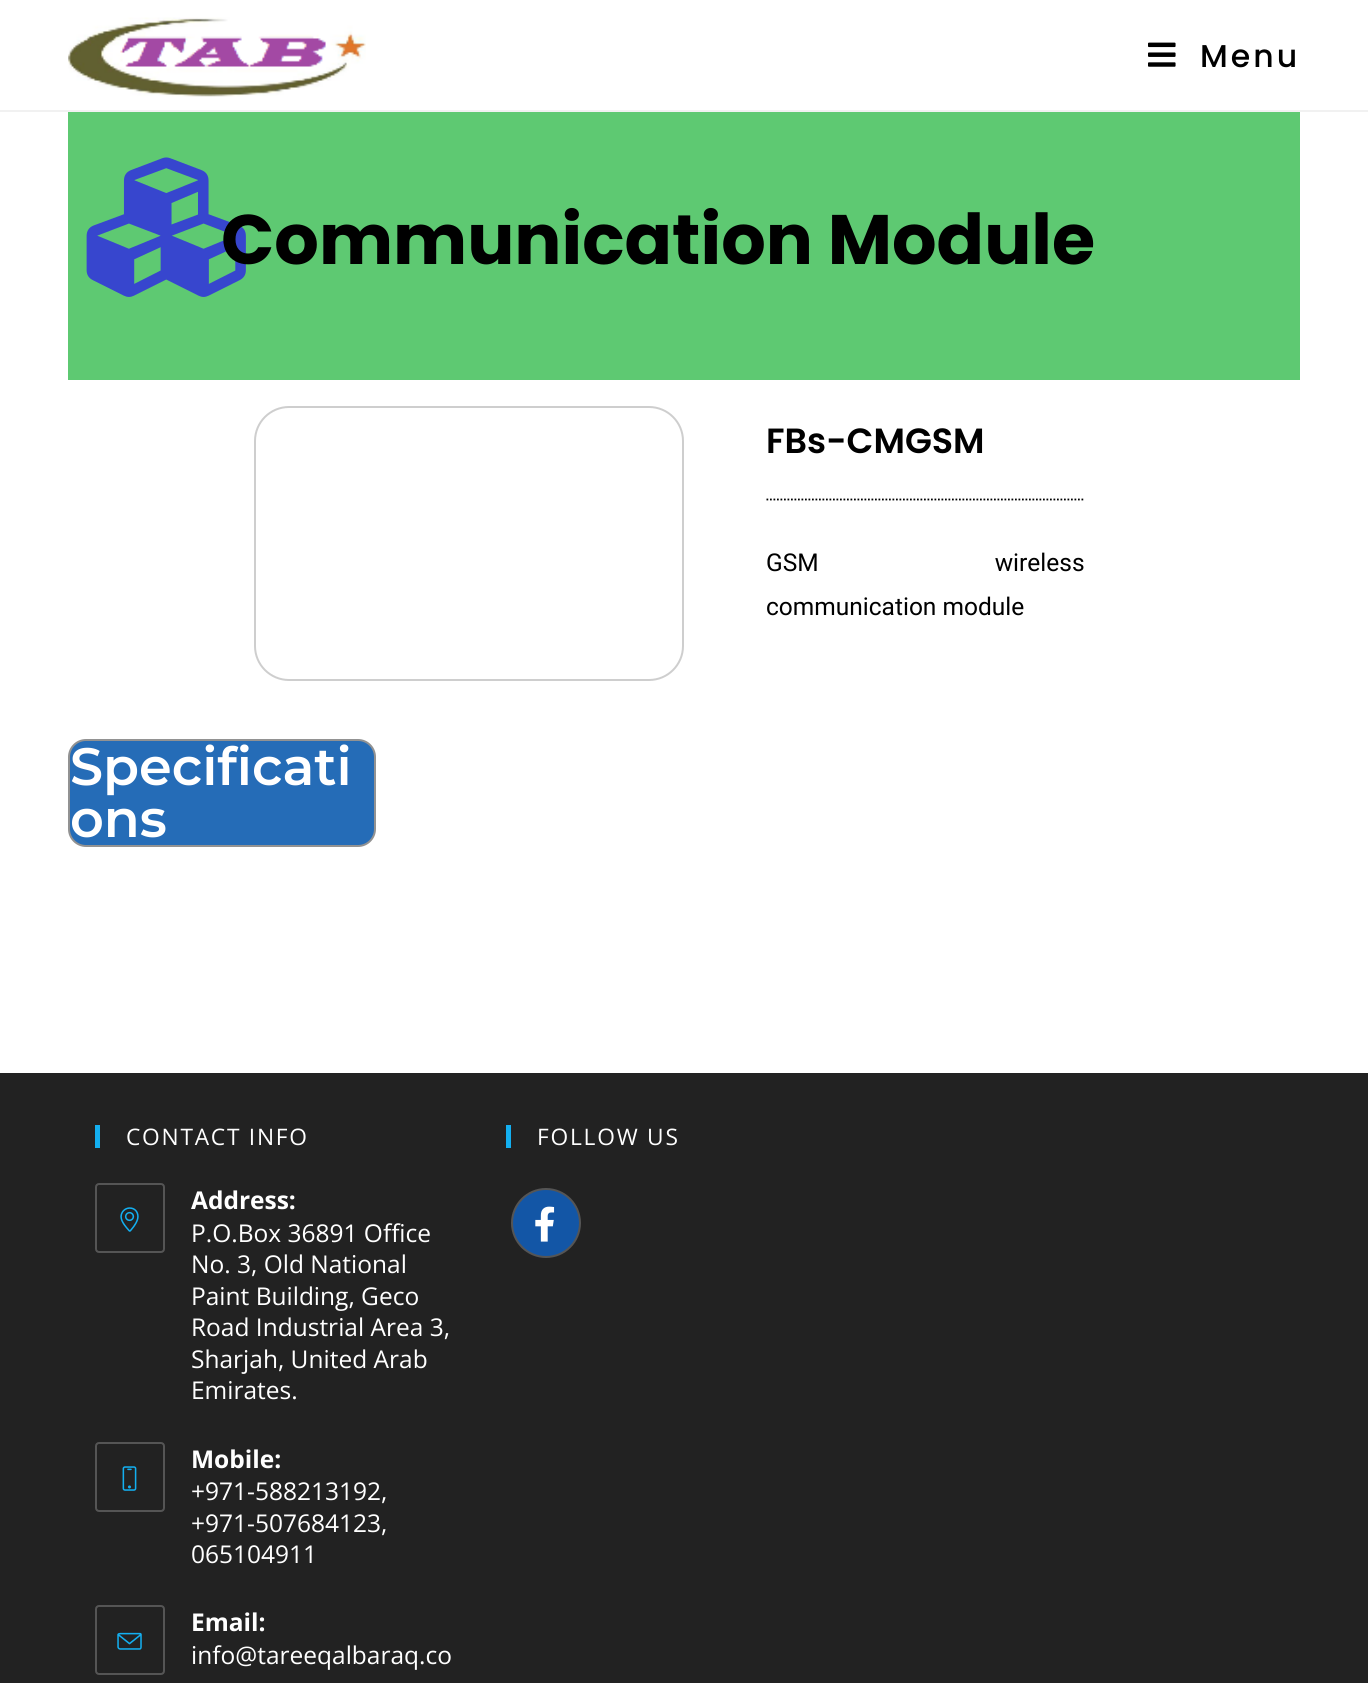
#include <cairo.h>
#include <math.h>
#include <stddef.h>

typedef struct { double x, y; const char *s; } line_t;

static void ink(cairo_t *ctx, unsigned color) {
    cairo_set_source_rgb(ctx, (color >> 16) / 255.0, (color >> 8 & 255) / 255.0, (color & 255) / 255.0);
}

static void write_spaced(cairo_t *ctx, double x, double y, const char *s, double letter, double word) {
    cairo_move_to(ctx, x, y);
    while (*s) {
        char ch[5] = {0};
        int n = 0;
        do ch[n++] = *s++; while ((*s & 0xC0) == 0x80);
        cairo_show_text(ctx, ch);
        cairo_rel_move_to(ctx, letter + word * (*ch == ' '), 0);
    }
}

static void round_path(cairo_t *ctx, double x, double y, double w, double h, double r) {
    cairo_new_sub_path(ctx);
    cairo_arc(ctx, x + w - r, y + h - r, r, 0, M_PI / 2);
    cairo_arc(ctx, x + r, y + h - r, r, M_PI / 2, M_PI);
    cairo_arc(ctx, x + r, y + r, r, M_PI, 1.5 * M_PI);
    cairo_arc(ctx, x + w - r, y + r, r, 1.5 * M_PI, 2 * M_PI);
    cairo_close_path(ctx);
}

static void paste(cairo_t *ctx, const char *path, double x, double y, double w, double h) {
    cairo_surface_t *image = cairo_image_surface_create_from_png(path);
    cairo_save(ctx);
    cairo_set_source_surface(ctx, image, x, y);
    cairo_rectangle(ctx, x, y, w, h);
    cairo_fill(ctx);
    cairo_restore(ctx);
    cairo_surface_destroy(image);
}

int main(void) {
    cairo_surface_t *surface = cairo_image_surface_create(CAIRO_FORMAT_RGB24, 1368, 1683);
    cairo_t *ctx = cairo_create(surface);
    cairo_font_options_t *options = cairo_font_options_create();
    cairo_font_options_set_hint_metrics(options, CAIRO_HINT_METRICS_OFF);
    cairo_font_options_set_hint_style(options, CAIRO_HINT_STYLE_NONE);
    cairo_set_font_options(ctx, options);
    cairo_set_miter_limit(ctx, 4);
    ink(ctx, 0xFFFFFF);
    cairo_paint(ctx);
    ink(ctx, 0xF1F1F1);
    cairo_rectangle(ctx, 0, 110, 1368, 2);
    cairo_fill(ctx);
    paste(ctx, "media/1.png", 68, 17, 298, 80);
    paste(ctx, "media/2.png", 1148, 42, 28, 25);
    cairo_select_font_face(ctx, "Poppins Medium", CAIRO_FONT_SLANT_NORMAL, CAIRO_FONT_WEIGHT_NORMAL);
    cairo_set_font_size(ctx, 31.5);
    ink(ctx, 0x000000);
    write_spaced(ctx, 1200, 67, "Menu", 3, 0);
    ink(ctx, 0x5EC972);
    cairo_rectangle(ctx, 68, 112, 1232, 268);
    cairo_fill(ctx);
    paste(ctx, "media/3.png", 86, 157, 160, 140);
    cairo_select_font_face(ctx, "Poppins", CAIRO_FONT_SLANT_NORMAL, CAIRO_FONT_WEIGHT_BOLD);
    cairo_set_font_size(ctx, 70);
    ink(ctx, 0x000000);
    cairo_move_to(ctx, 221, 264);
    cairo_show_text(ctx, "Communication Module");
    round_path(ctx, 255, 407, 428, 273, 34);
    ink(ctx, 0xCECECE);
    cairo_stroke(ctx);
    cairo_select_font_face(ctx, "Poppins SemiBold", CAIRO_FONT_SLANT_NORMAL, CAIRO_FONT_WEIGHT_NORMAL);
    cairo_set_font_size(ctx, 35);
    ink(ctx, 0x000000);
    cairo_move_to(ctx, 766, 453);
    cairo_show_text(ctx, "FBs-CMGSM");
    cairo_new_path(ctx);
    cairo_move_to(ctx, 766.5, 499.5);
    cairo_line_to(ctx, 1085, 499.5);
    cairo_set_line_width(ctx, 1.8);
    cairo_set_dash(ctx, (double[]){1.75, 1.75}, 2, 0);
    cairo_stroke(ctx);
    cairo_select_font_face(ctx, "Roboto", CAIRO_FONT_SLANT_NORMAL, CAIRO_FONT_WEIGHT_NORMAL);
    cairo_set_font_size(ctx, 24.5);
    write_spaced(ctx, 766, 571, "GSM wireless", 0, 170);
    cairo_move_to(ctx, 766, 615);
    cairo_show_text(ctx, "communication module");
    ink(ctx, 0x256CB7);
    round_path(ctx, 69, 740, 306, 106, 17);
    cairo_fill_preserve(ctx);
    ink(ctx, 0x929292);
    cairo_set_line_width(ctx, 2);
    cairo_set_dash(ctx, NULL, 0, 0);
    cairo_stroke(ctx);
    cairo_select_font_face(ctx, "Montserrat SemiBold", CAIRO_FONT_SLANT_NORMAL, CAIRO_FONT_WEIGHT_NORMAL);
    cairo_set_font_size(ctx, 52.5);
    ink(ctx, 0xFFFFFF);
    cairo_move_to(ctx, 70, 785);
    cairo_show_text(ctx, "Specificati");
    cairo_move_to(ctx, 70, 837);
    cairo_show_text(ctx, "ons");
    ink(ctx, 0x222222);
    cairo_rectangle(ctx, 0, 1073, 1368, 610);
    cairo_fill(ctx);
    ink(ctx, 0x13AFF0);
    cairo_rectangle(ctx, 95, 1125, 5, 23);
    cairo_fill(ctx);
    cairo_select_font_face(ctx, "Open Sans", CAIRO_FONT_SLANT_NORMAL, CAIRO_FONT_WEIGHT_NORMAL);
    cairo_set_font_size(ctx, 22.75);
    ink(ctx, 0xFFFFFF);
    write_spaced(ctx, 126, 1145, "CONTACT INFO", 1.75, 0);
    round_path(ctx, 96, 1184, 68, 68, 3);
    ink(ctx, 0x555555);
    cairo_stroke(ctx);
    paste(ctx, "media/4.png", 120, 1207, 19, 25);
    cairo_select_font_face(ctx, "Open Sans", CAIRO_FONT_SLANT_NORMAL, CAIRO_FONT_WEIGHT_BOLD);
    cairo_set_font_size(ctx, 24.5);
    ink(ctx, 0xFFFFFF);
    cairo_move_to(ctx, 191, 1209);
    cairo_show_text(ctx, "Address:");
    cairo_select_font_face(ctx, "Open Sans", CAIRO_FONT_SLANT_NORMAL, CAIRO_FONT_WEIGHT_NORMAL);
    {
        static const line_t items[] = {
            {191, 1242, "P.O.Box 36891 Office"},
            {191, 1273, "No. 3, Old National"},
            {191, 1305, "Paint Building, Geco"},
            {191, 1336, "Road Industrial Area 3,"},
            {191, 1368, "Sharjah, United Arab"},
            {191, 1399, "Emirates."},
        };
        for (size_t i = 0; i < sizeof items / sizeof *items; i++) {
            cairo_move_to(ctx, items[i].x, items[i].y);
            cairo_show_text(ctx, items[i].s);
        }
    }
    round_path(ctx, 96, 1443, 68, 68, 3);
    ink(ctx, 0x555555);
    cairo_stroke(ctx);
    paste(ctx, "media/5.png", 122, 1466, 15, 25);
    cairo_select_font_face(ctx, "Open Sans", CAIRO_FONT_SLANT_NORMAL, CAIRO_FONT_WEIGHT_BOLD);
    ink(ctx, 0xFFFFFF);
    cairo_move_to(ctx, 191, 1468);
    cairo_show_text(ctx, "Mobile:");
    cairo_select_font_face(ctx, "Open Sans", CAIRO_FONT_SLANT_NORMAL, CAIRO_FONT_WEIGHT_NORMAL);
    {
        static const line_t items[] = {
            {191, 1500, "+971-588213192,"},
            {191, 1532, "+971-507684123,"},
            {191, 1563, "065104911"},
        };
        for (size_t i = 0; i < sizeof items / sizeof *items; i++) {
            cairo_move_to(ctx, items[i].x, items[i].y);
            cairo_show_text(ctx, items[i].s);
        }
    }
    round_path(ctx, 96, 1606, 68, 68, 3);
    ink(ctx, 0x555555);
    cairo_stroke(ctx);
    paste(ctx, "media/6.png", 117, 1632, 25, 18);
    cairo_select_font_face(ctx, "Open Sans", CAIRO_FONT_SLANT_NORMAL, CAIRO_FONT_WEIGHT_BOLD);
    ink(ctx, 0xFFFFFF);
    cairo_move_to(ctx, 191, 1631);
    cairo_show_text(ctx, "Email:");
    cairo_select_font_face(ctx, "Open Sans", CAIRO_FONT_SLANT_NORMAL, CAIRO_FONT_WEIGHT_NORMAL);
    cairo_move_to(ctx, 191, 1664);
    cairo_show_text(ctx, "info@tareeqalbaraq.co");
    ink(ctx, 0x13AFF0);
    cairo_rectangle(ctx, 506, 1125, 5, 23);
    cairo_fill(ctx);
    cairo_set_font_size(ctx, 22.75);
    ink(ctx, 0xFFFFFF);
    write_spaced(ctx, 537, 1145, "FOLLOW US", 1.75, 0);
    ink(ctx, 0x1356A6);
    cairo_new_path(ctx);
    cairo_arc(ctx, 546, 1223, 34, 0, 2 * M_PI);
    cairo_fill_preserve(ctx);
    ink(ctx, 0x555555);
    cairo_stroke(ctx);
    paste(ctx, "media/7.png", 535, 1206, 20, 36);
    cairo_surface_write_to_png(surface, "image.png");
    cairo_font_options_destroy(options);
    cairo_destroy(ctx);
    cairo_surface_destroy(surface);
    return 0;
}
